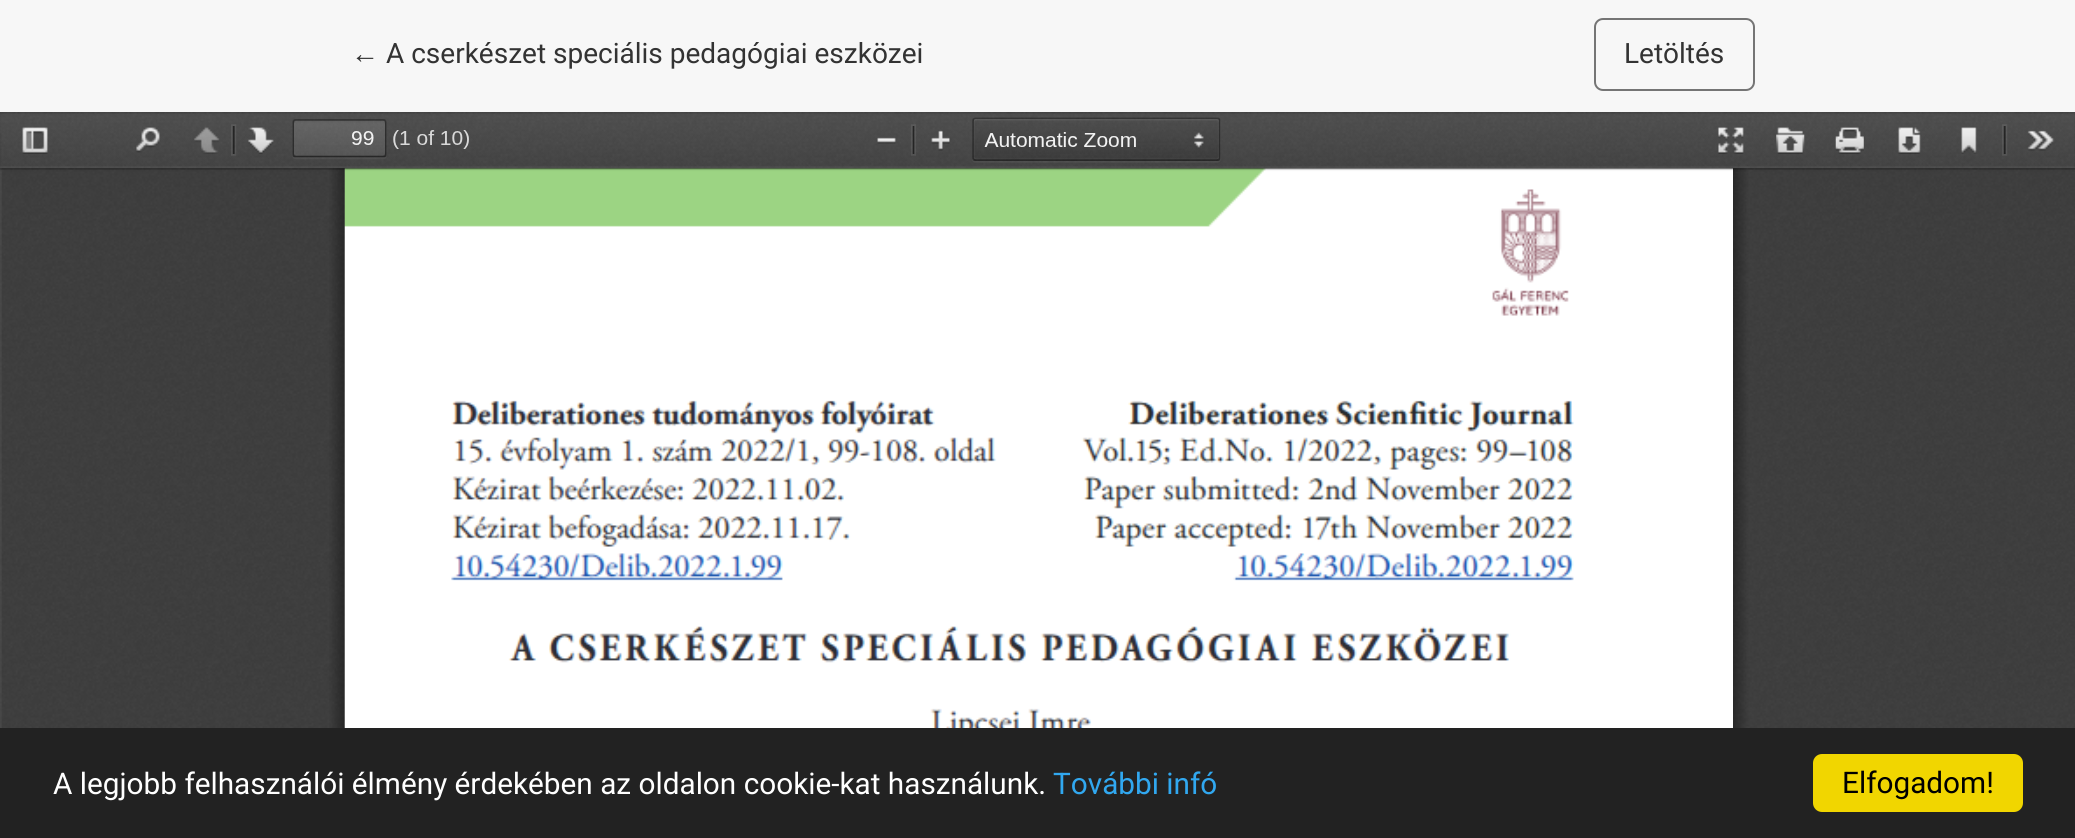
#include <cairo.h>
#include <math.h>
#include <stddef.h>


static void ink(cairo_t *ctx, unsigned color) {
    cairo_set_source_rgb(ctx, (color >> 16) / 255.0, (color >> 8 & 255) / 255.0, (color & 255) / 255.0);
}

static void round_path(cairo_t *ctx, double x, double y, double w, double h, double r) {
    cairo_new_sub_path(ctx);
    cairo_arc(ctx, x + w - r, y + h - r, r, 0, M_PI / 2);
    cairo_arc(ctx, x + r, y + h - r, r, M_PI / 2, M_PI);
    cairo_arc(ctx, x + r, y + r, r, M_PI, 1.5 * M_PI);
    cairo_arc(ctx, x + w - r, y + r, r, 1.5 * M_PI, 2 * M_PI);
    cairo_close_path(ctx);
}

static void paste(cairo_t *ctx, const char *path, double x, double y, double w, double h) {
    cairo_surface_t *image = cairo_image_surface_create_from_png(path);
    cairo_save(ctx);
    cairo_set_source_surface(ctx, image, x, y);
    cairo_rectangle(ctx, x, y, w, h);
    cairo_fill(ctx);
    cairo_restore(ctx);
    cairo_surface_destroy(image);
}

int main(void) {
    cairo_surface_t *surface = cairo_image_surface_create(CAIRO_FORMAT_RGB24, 2075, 838);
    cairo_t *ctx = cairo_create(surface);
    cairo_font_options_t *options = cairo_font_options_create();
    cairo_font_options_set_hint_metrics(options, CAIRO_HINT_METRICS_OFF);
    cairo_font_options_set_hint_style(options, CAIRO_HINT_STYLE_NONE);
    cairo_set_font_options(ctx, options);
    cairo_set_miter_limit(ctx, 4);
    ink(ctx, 0xF7F7F7);
    cairo_paint(ctx);
    cairo_select_font_face(ctx, "Liberation Sans", CAIRO_FONT_SLANT_NORMAL, CAIRO_FONT_WEIGHT_NORMAL);
    cairo_set_font_size(ctx, 28);
    ink(ctx, 0x333333);
    cairo_move_to(ctx, 351, 63);
    cairo_show_text(ctx, "←");
    cairo_select_font_face(ctx, "Roboto", CAIRO_FONT_SLANT_NORMAL, CAIRO_FONT_WEIGHT_NORMAL);
    cairo_move_to(ctx, 386, 63);
    cairo_show_text(ctx, "A cserkészet speciális pedagógiai eszközei");
    round_path(ctx, 1595, 19, 159, 71, 8);
    ink(ctx, 0x757575);
    cairo_stroke(ctx);
    ink(ctx, 0x333333);
    cairo_move_to(ctx, 1624, 63);
    cairo_show_text(ctx, "Letöltés");
    paste(ctx, "media/1.png", 0, 112, 2075, 616);
    ink(ctx, 0x222222);
    cairo_rectangle(ctx, 0, 728, 2075, 110);
    cairo_fill(ctx);
    cairo_set_font_size(ctx, 29.75);
    ink(ctx, 0xFFFFFF);
    cairo_move_to(ctx, 53, 794);
    cairo_show_text(ctx, "A legjobb felhasználói élmény érdekében az oldalon cookie-kat használunk.");
    ink(ctx, 0x31A8F0);
    cairo_move_to(ctx, 1053, 794);
    cairo_show_text(ctx, "További infó");
    ink(ctx, 0xF1D600);
    round_path(ctx, 1813, 754, 210, 58, 9);
    cairo_fill(ctx);
    ink(ctx, 0x000000);
    cairo_move_to(ctx, 1842, 793);
    cairo_show_text(ctx, "Elfogadom!");
    cairo_surface_write_to_png(surface, "image.png");
    cairo_font_options_destroy(options);
    cairo_destroy(ctx);
    cairo_surface_destroy(surface);
    return 0;
}
